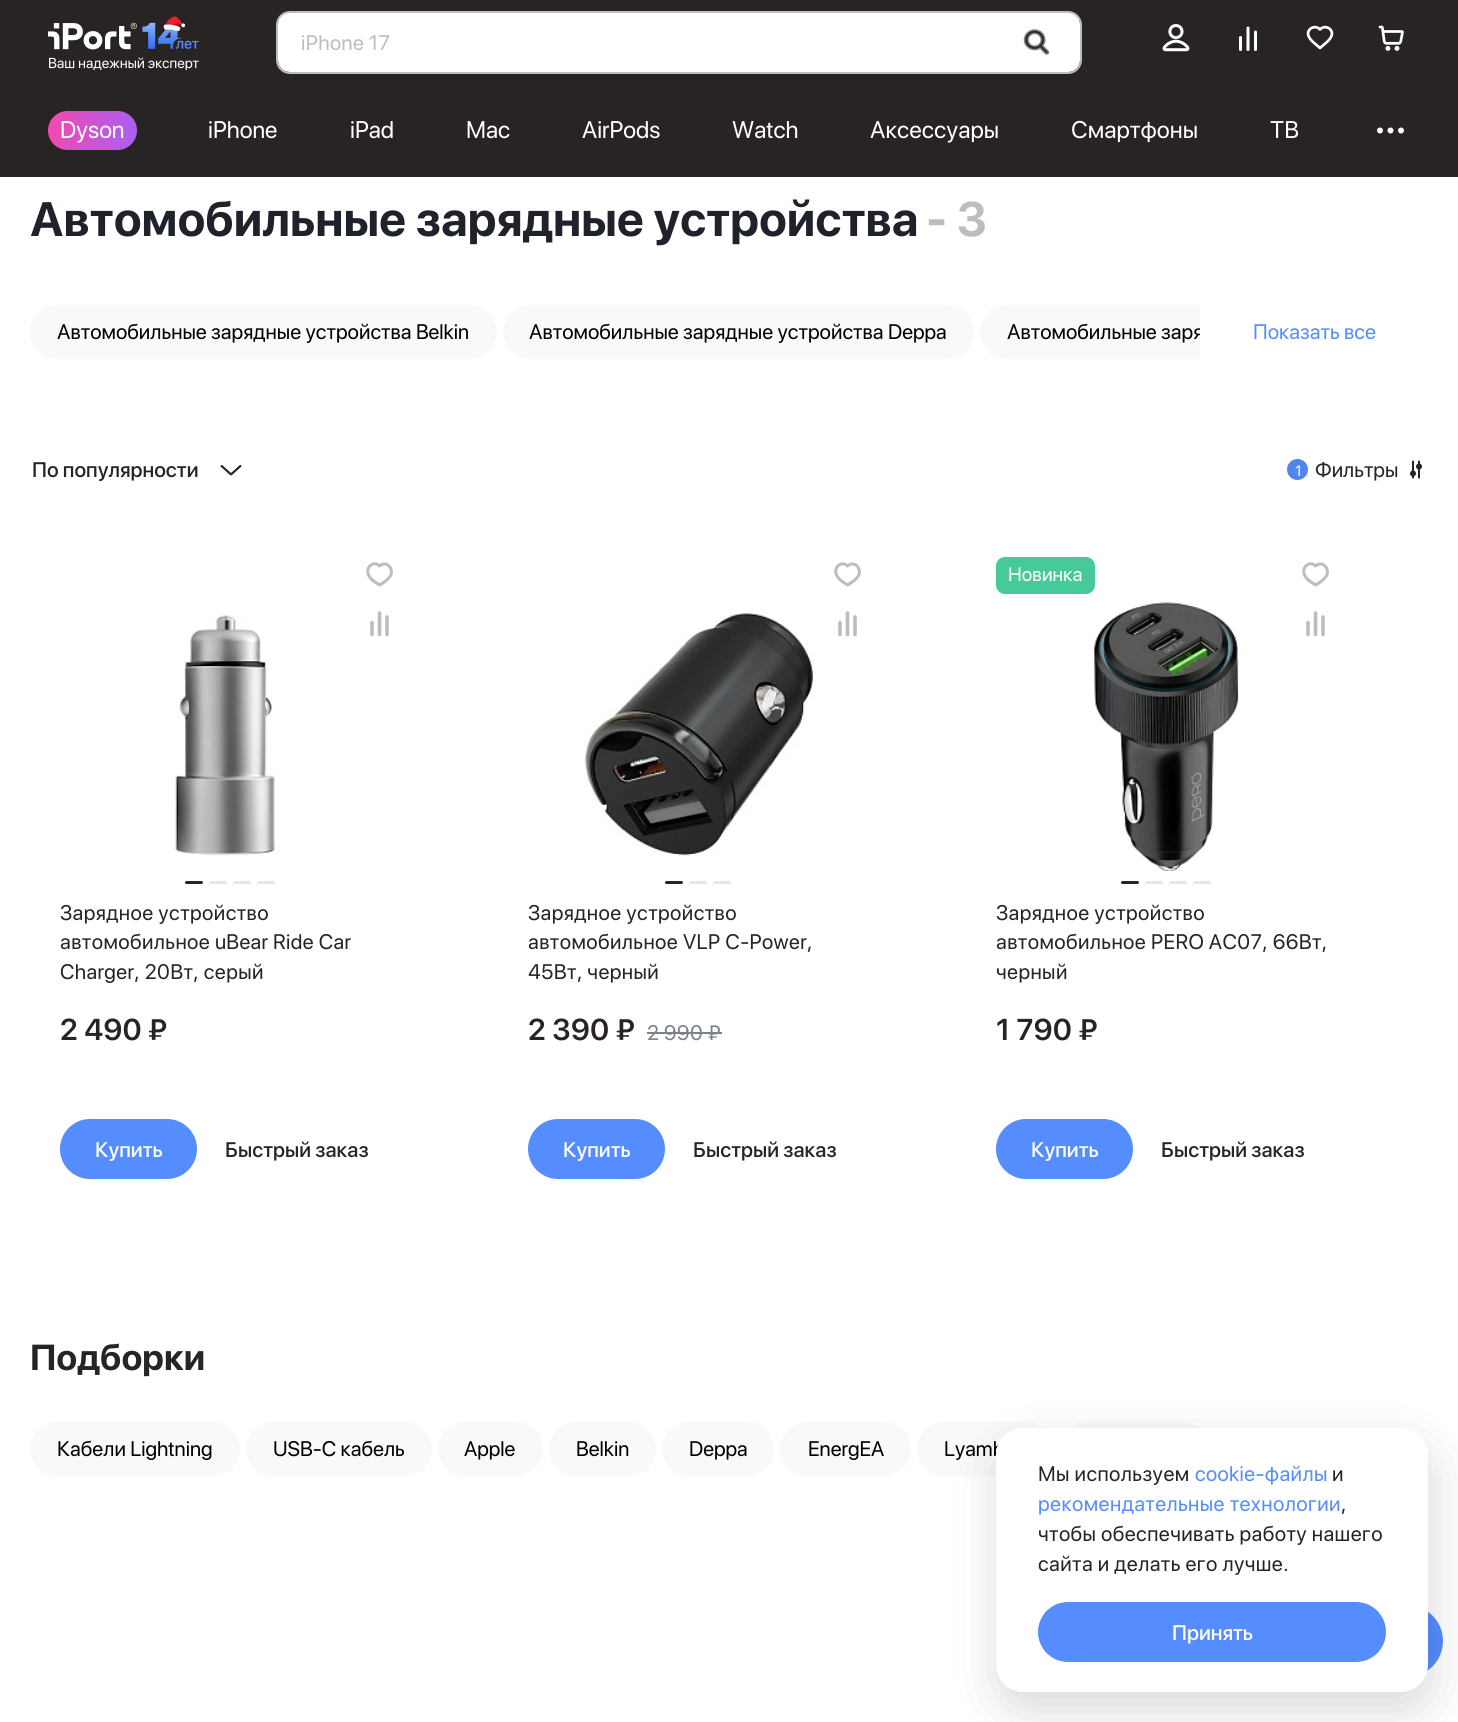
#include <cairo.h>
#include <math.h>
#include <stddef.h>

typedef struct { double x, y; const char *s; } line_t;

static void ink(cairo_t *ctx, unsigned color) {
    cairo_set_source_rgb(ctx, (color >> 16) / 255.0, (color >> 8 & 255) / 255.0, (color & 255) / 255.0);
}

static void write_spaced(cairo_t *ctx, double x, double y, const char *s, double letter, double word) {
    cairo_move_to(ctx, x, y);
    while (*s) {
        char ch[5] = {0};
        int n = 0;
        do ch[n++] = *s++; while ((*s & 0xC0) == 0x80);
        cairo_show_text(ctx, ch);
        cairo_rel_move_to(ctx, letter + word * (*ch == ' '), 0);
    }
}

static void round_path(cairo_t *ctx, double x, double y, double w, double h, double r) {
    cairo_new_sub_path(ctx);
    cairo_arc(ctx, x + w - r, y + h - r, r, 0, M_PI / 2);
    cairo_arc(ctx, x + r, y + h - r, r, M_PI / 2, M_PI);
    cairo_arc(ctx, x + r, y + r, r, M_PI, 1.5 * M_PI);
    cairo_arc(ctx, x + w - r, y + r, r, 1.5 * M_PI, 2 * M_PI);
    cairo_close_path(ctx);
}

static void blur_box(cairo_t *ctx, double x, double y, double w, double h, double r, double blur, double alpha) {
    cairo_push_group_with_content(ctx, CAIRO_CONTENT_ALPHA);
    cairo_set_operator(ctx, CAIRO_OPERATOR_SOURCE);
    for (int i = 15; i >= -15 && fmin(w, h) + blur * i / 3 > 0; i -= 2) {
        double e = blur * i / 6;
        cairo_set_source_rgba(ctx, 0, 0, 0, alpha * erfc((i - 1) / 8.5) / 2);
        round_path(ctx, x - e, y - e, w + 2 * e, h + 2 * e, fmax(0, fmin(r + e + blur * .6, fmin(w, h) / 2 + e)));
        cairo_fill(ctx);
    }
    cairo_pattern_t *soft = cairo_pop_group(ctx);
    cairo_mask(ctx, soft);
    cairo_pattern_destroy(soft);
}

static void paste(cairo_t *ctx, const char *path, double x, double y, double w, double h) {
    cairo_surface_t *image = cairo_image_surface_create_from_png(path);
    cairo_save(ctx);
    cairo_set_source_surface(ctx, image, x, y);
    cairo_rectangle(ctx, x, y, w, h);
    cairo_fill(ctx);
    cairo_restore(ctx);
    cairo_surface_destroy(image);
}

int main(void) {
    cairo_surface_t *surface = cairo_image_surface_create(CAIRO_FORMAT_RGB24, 1458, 1722);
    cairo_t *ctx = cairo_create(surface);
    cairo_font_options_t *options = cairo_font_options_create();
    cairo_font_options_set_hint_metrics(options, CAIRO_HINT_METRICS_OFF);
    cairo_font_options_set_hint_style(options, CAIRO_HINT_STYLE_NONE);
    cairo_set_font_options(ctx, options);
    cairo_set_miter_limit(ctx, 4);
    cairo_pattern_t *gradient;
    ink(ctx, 0xFFFFFF);
    cairo_paint(ctx);
    ink(ctx, 0x292424);
    cairo_rectangle(ctx, 0, 0, 1458, 177);
    cairo_fill(ctx);
    paste(ctx, "media/1.png", 48, 16, 151, 54);
    ink(ctx, 0xFFFFFF);
    round_path(ctx, 278, 12, 802, 60, 12);
    cairo_fill(ctx);
    round_path(ctx, 277, 12, 804, 61, 13);
    ink(ctx, 0xBDBDBD);
    cairo_stroke(ctx);
    cairo_select_font_face(ctx, "SF Pro Display", CAIRO_FONT_SLANT_NORMAL, CAIRO_FONT_WEIGHT_NORMAL);
    cairo_set_font_size(ctx, 21);
    write_spaced(ctx, 301, 50, "iPhone 17", 0.4, 0);
    paste(ctx, "media/2.png", 1023, 29, 27, 26);
    paste(ctx, "media/3.png", 1162, 24, 28, 28);
    cairo_new_path(ctx);
    cairo_move_to(ctx, 1255.5, 49.5);
    cairo_line_to(ctx, 1255.5, 32);
    cairo_move_to(ctx, 1248, 49.5);
    cairo_line_to(ctx, 1248, 28);
    cairo_move_to(ctx, 1240.5, 49.5);
    cairo_line_to(ctx, 1240.5, 37.5);
    ink(ctx, 0xFFFFFF);
    cairo_set_line_width(ctx, 3);
    cairo_set_line_cap(ctx, CAIRO_LINE_CAP_ROUND);
    cairo_set_line_join(ctx, CAIRO_LINE_JOIN_ROUND);
    cairo_stroke(ctx);
    cairo_new_path(ctx);
    cairo_move_to(ctx, 1320, 29.5);
    cairo_curve_to(ctx, 1314.5, 23.5, 1305, 30, 1309, 37);
    cairo_curve_to(ctx, 1310.5, 40, 1313.5, 42.5, 1316, 44.5);
    cairo_line_to(ctx, 1320, 48);
    cairo_line_to(ctx, 1324, 44.5);
    cairo_curve_to(ctx, 1326.5, 42.5, 1329.5, 40, 1331, 37);
    cairo_curve_to(ctx, 1335, 30, 1325.5, 23.5, 1320, 29.5);
    cairo_close_path(ctx);
    cairo_set_line_width(ctx, 2.7);
    cairo_stroke(ctx);
    paste(ctx, "media/4.png", 1378, 25, 26, 26);
    gradient = cairo_pattern_create_linear(48, 131, 137, 131);
    cairo_pattern_add_color_stop_rgba(gradient, 0, 0.953, 0.286, 0.678, 1);
    cairo_pattern_add_color_stop_rgba(gradient, 1, 0.659, 0.38, 0.961, 1);
    cairo_set_source(ctx, gradient);
    cairo_pattern_destroy(gradient);
    round_path(ctx, 48, 111, 89, 39, 19.5);
    cairo_fill(ctx);
    cairo_set_font_size(ctx, 24);
    ink(ctx, 0xFFFFFF);
    {
        static const line_t items[] = {
            {60, 138, "Dyson"},
            {208, 138, "iPhone"},
            {350, 138, "iPad"},
            {466, 138, "Mac"},
            {582, 138, "AirPods"},
            {732, 138, "Watch"},
            {870, 138, "Аксессуары"},
            {1071, 138, "Смартфоны"},
            {1270, 138, "ТВ"},
        };
        for (size_t i = 0; i < sizeof items / sizeof *items; i++) {
            cairo_move_to(ctx, items[i].x, items[i].y);
            cairo_show_text(ctx, items[i].s);
        }
    }
    paste(ctx, "media/5.png", 1377, 127, 27, 7);
    cairo_select_font_face(ctx, "SF Pro Display", CAIRO_FONT_SLANT_NORMAL, CAIRO_FONT_WEIGHT_BOLD);
    cairo_set_font_size(ctx, 48);
    ink(ctx, 0x1F222B);
    cairo_move_to(ctx, 30, 236);
    cairo_show_text(ctx, "Автомобильные зарядные устройства");
    ink(ctx, 0xBDBDBD);
    cairo_move_to(ctx, 926, 236);
    cairo_show_text(ctx, "- 3");
    ink(ctx, 0xF9F9F9);
    round_path(ctx, 30, 305, 467, 54, 27);
    cairo_fill(ctx);
    cairo_select_font_face(ctx, "SF Pro Display", CAIRO_FONT_SLANT_NORMAL, CAIRO_FONT_WEIGHT_NORMAL);
    cairo_set_font_size(ctx, 21);
    ink(ctx, 0x000000);
    cairo_move_to(ctx, 57, 339);
    cairo_show_text(ctx, "Автомобильные зарядные устройства Belkin");
    ink(ctx, 0xF9F9F9);
    round_path(ctx, 503, 305, 471, 54, 27);
    cairo_fill(ctx);
    ink(ctx, 0x000000);
    cairo_move_to(ctx, 529, 339);
    cairo_show_text(ctx, "Автомобильные зарядные устройства Deppa");
    ink(ctx, 0xF9F9F9);
    cairo_new_path(ctx);
    cairo_move_to(ctx, 1007, 305);
    cairo_line_to(ctx, 1428, 305);
    cairo_line_to(ctx, 1428, 359);
    cairo_line_to(ctx, 1007, 359);
    cairo_curve_to(ctx, 992, 359, 980, 347, 980, 332);
    cairo_curve_to(ctx, 980, 317, 992, 305, 1007, 305);
    cairo_close_path(ctx);
    cairo_fill(ctx);
    ink(ctx, 0x000000);
    cairo_move_to(ctx, 1007, 339);
    cairo_show_text(ctx, "Автомобильные заря");
    ink(ctx, 0xFFFFFF);
    cairo_rectangle(ctx, 1200, 305, 228, 54);
    cairo_fill(ctx);
    ink(ctx, 0x568DFE);
    cairo_move_to(ctx, 1253, 339);
    cairo_show_text(ctx, "Показать все");
    cairo_select_font_face(ctx, "SF Pro Display Medium", CAIRO_FONT_SLANT_NORMAL, CAIRO_FONT_WEIGHT_NORMAL);
    ink(ctx, 0x292424);
    cairo_move_to(ctx, 32, 477);
    cairo_show_text(ctx, "По популярности");
    paste(ctx, "media/6.png", 220, 465, 22, 11);
    ink(ctx, 0x5185EC);
    cairo_arc(ctx, 1297.5, 469.5, 10.5, 0, 2 * M_PI);
    cairo_fill(ctx);
    cairo_select_font_face(ctx, "SF Pro Display", CAIRO_FONT_SLANT_NORMAL, CAIRO_FONT_WEIGHT_NORMAL);
    cairo_set_font_size(ctx, 15);
    ink(ctx, 0xFFFFFF);
    cairo_move_to(ctx, 1295, 476);
    cairo_show_text(ctx, "1");
    cairo_set_font_size(ctx, 21);
    ink(ctx, 0x292424);
    cairo_move_to(ctx, 1315, 477);
    cairo_show_text(ctx, "Фильтры");
    paste(ctx, "media/7.png", 1410, 460, 12, 19);
    cairo_new_path(ctx);
    cairo_move_to(ctx, 384.5, 564);
    cairo_curve_to(ctx, 389.5, 564, 392.5, 569.5, 391, 574.5);
    cairo_curve_to(ctx, 389.5, 578, 386.5, 580.5, 383.5, 582.5);
    cairo_line_to(ctx, 379.5, 585);
    cairo_line_to(ctx, 373.5, 581);
    cairo_curve_to(ctx, 360, 570, 373.5, 559, 379.5, 566);
    cairo_curve_to(ctx, 380.5, 565, 382, 564, 384.5, 564);
    cairo_close_path(ctx);
    ink(ctx, 0xBDBDBD);
    cairo_set_line_width(ctx, 3);
    cairo_stroke(ctx);
    cairo_new_path(ctx);
    cairo_move_to(ctx, 387, 634.5);
    cairo_line_to(ctx, 387, 617);
    cairo_move_to(ctx, 379.5, 634.5);
    cairo_line_to(ctx, 379.5, 613);
    cairo_move_to(ctx, 372, 634.5);
    cairo_line_to(ctx, 372, 622.5);
    cairo_set_line_width(ctx, 3.6);
    cairo_stroke(ctx);
    paste(ctx, "media/8.png", 175, 615, 101, 241);
    ink(ctx, 0x292424);
    round_path(ctx, 185, 881, 18, 3, 1.5);
    cairo_fill(ctx);
    ink(ctx, 0xE7E7E8);
    round_path(ctx, 209, 881, 18, 3, 1.5);
    cairo_fill(ctx);
    round_path(ctx, 233, 881, 18, 3, 1.5);
    cairo_fill(ctx);
    round_path(ctx, 257, 881, 18, 3, 1.5);
    cairo_fill(ctx);
    ink(ctx, 0x292424);
    {
        static const line_t items[] = {
            {60, 920, "Зарядное устройство"},
            {60, 949, "автомобильное uBear Ride Car"},
            {60, 979, "Charger, 20Вт, серый"},
        };
        for (size_t i = 0; i < sizeof items / sizeof *items; i++) {
            write_spaced(ctx, items[i].x, items[i].y, items[i].s, 0.4, 0);
        }
    }
    cairo_select_font_face(ctx, "SF Pro Display SemiBold", CAIRO_FONT_SLANT_NORMAL, CAIRO_FONT_WEIGHT_NORMAL);
    cairo_set_font_size(ctx, 30);
    write_spaced(ctx, 60, 1040, "2 490 ₽", 0.25, 0);
    ink(ctx, 0x568DFE);
    round_path(ctx, 60, 1119, 137, 60, 30);
    cairo_fill(ctx);
    cairo_select_font_face(ctx, "SF Pro Display Medium", CAIRO_FONT_SLANT_NORMAL, CAIRO_FONT_WEIGHT_NORMAL);
    cairo_set_font_size(ctx, 21);
    ink(ctx, 0xFFFFFF);
    cairo_move_to(ctx, 95, 1157);
    cairo_show_text(ctx, "Купить");
    ink(ctx, 0x292424);
    cairo_move_to(ctx, 225, 1157);
    cairo_show_text(ctx, "Быстрый заказ");
    cairo_new_path(ctx);
    cairo_move_to(ctx, 852.5, 564);
    cairo_curve_to(ctx, 857.5, 564, 860.5, 569.5, 859, 574.5);
    cairo_curve_to(ctx, 857.5, 578, 854.5, 580.5, 851.5, 582.5);
    cairo_line_to(ctx, 847.5, 585);
    cairo_line_to(ctx, 841.5, 581);
    cairo_curve_to(ctx, 828, 570, 841.5, 559, 847.5, 566);
    cairo_curve_to(ctx, 848.5, 565, 850, 564, 852.5, 564);
    cairo_close_path(ctx);
    ink(ctx, 0xBDBDBD);
    cairo_set_line_width(ctx, 3);
    cairo_stroke(ctx);
    cairo_new_path(ctx);
    cairo_move_to(ctx, 855, 634.5);
    cairo_line_to(ctx, 855, 617);
    cairo_move_to(ctx, 847.5, 634.5);
    cairo_line_to(ctx, 847.5, 613);
    cairo_move_to(ctx, 840, 634.5);
    cairo_line_to(ctx, 840, 622.5);
    cairo_set_line_width(ctx, 3.6);
    cairo_stroke(ctx);
    paste(ctx, "media/9.png", 584, 613, 231, 243);
    ink(ctx, 0x292424);
    round_path(ctx, 665, 881, 18, 3, 1.5);
    cairo_fill(ctx);
    ink(ctx, 0xE7E7E8);
    round_path(ctx, 689, 881, 18, 3, 1.5);
    cairo_fill(ctx);
    round_path(ctx, 713, 881, 18, 3, 1.5);
    cairo_fill(ctx);
    cairo_select_font_face(ctx, "SF Pro Display", CAIRO_FONT_SLANT_NORMAL, CAIRO_FONT_WEIGHT_NORMAL);
    ink(ctx, 0x292424);
    {
        static const line_t items[] = {
            {528, 920, "Зарядное устройство"},
            {528, 949, "автомобильное VLP С-Power,"},
            {528, 979, "45Вт, черный"},
        };
        for (size_t i = 0; i < sizeof items / sizeof *items; i++) {
            write_spaced(ctx, items[i].x, items[i].y, items[i].s, 0.4, 0);
        }
    }
    cairo_select_font_face(ctx, "SF Pro Display SemiBold", CAIRO_FONT_SLANT_NORMAL, CAIRO_FONT_WEIGHT_NORMAL);
    cairo_set_font_size(ctx, 30);
    write_spaced(ctx, 528, 1040, "2 390 ₽", 0.25, 0);
    cairo_select_font_face(ctx, "SF Pro Display", CAIRO_FONT_SLANT_NORMAL, CAIRO_FONT_WEIGHT_NORMAL);
    cairo_set_font_size(ctx, 21);
    ink(ctx, 0x7C8087);
    write_spaced(ctx, 647, 1040, "2 990 ₽", 0.4, 0);
    cairo_rectangle(ctx, 647, 1032, 75, 2);
    cairo_fill(ctx);
    ink(ctx, 0x568DFE);
    round_path(ctx, 528, 1119, 137, 60, 30);
    cairo_fill(ctx);
    cairo_select_font_face(ctx, "SF Pro Display Medium", CAIRO_FONT_SLANT_NORMAL, CAIRO_FONT_WEIGHT_NORMAL);
    ink(ctx, 0xFFFFFF);
    cairo_move_to(ctx, 563, 1157);
    cairo_show_text(ctx, "Купить");
    ink(ctx, 0x292424);
    cairo_move_to(ctx, 693, 1157);
    cairo_show_text(ctx, "Быстрый заказ");
    ink(ctx, 0x46CA9A);
    round_path(ctx, 996, 557, 99, 37, 9);
    cairo_fill(ctx);
    cairo_select_font_face(ctx, "SF Pro Display", CAIRO_FONT_SLANT_NORMAL, CAIRO_FONT_WEIGHT_NORMAL);
    cairo_set_font_size(ctx, 19.5);
    ink(ctx, 0xFFFFFF);
    cairo_move_to(ctx, 1008, 581);
    cairo_show_text(ctx, "Новинка");
    cairo_new_path(ctx);
    cairo_move_to(ctx, 1320.5, 564);
    cairo_curve_to(ctx, 1325.5, 564, 1328.5, 569.5, 1327, 574.5);
    cairo_curve_to(ctx, 1325.5, 578, 1322.5, 580.5, 1319.5, 582.5);
    cairo_line_to(ctx, 1315.5, 585);
    cairo_line_to(ctx, 1309.5, 581);
    cairo_curve_to(ctx, 1296, 570, 1309.5, 559, 1315.5, 566);
    cairo_curve_to(ctx, 1316.5, 565, 1318, 564, 1320.5, 564);
    cairo_close_path(ctx);
    ink(ctx, 0xBDBDBD);
    cairo_set_line_width(ctx, 3);
    cairo_stroke(ctx);
    cairo_new_path(ctx);
    cairo_move_to(ctx, 1323, 634.5);
    cairo_line_to(ctx, 1323, 617);
    cairo_move_to(ctx, 1315.5, 634.5);
    cairo_line_to(ctx, 1315.5, 613);
    cairo_move_to(ctx, 1308, 634.5);
    cairo_line_to(ctx, 1308, 622.5);
    cairo_set_line_width(ctx, 3.6);
    cairo_stroke(ctx);
    paste(ctx, "media/10.png", 1094, 602, 145, 269);
    ink(ctx, 0x292424);
    round_path(ctx, 1121, 881, 18, 3, 1.5);
    cairo_fill(ctx);
    ink(ctx, 0xE7E7E8);
    round_path(ctx, 1145, 881, 18, 3, 1.5);
    cairo_fill(ctx);
    round_path(ctx, 1169, 881, 18, 3, 1.5);
    cairo_fill(ctx);
    round_path(ctx, 1193, 881, 18, 3, 1.5);
    cairo_fill(ctx);
    cairo_set_font_size(ctx, 21);
    ink(ctx, 0x292424);
    {
        static const line_t items[] = {
            {996, 920, "Зарядное устройство"},
            {996, 949, "автомобильное PERO AC07, 66Вт,"},
            {996, 979, "черный"},
        };
        for (size_t i = 0; i < sizeof items / sizeof *items; i++) {
            write_spaced(ctx, items[i].x, items[i].y, items[i].s, 0.4, 0);
        }
    }
    cairo_select_font_face(ctx, "SF Pro Display SemiBold", CAIRO_FONT_SLANT_NORMAL, CAIRO_FONT_WEIGHT_NORMAL);
    cairo_set_font_size(ctx, 30);
    write_spaced(ctx, 996, 1040, "1 790 ₽", 0.25, 0);
    ink(ctx, 0x568DFE);
    round_path(ctx, 996, 1119, 137, 60, 30);
    cairo_fill(ctx);
    cairo_select_font_face(ctx, "SF Pro Display Medium", CAIRO_FONT_SLANT_NORMAL, CAIRO_FONT_WEIGHT_NORMAL);
    cairo_set_font_size(ctx, 21);
    ink(ctx, 0xFFFFFF);
    cairo_move_to(ctx, 1031, 1157);
    cairo_show_text(ctx, "Купить");
    ink(ctx, 0x292424);
    cairo_move_to(ctx, 1161, 1157);
    cairo_show_text(ctx, "Быстрый заказ");
    cairo_select_font_face(ctx, "SF Pro Display", CAIRO_FONT_SLANT_NORMAL, CAIRO_FONT_WEIGHT_BOLD);
    cairo_set_font_size(ctx, 36);
    cairo_move_to(ctx, 30, 1370);
    cairo_show_text(ctx, "Подборки");
    ink(ctx, 0xF9F9F9);
    round_path(ctx, 1059, 1422, 153, 54, 27);
    cairo_fill(ctx);
    round_path(ctx, 30, 1422, 210, 54, 27);
    cairo_fill(ctx);
    cairo_select_font_face(ctx, "SF Pro Display", CAIRO_FONT_SLANT_NORMAL, CAIRO_FONT_WEIGHT_NORMAL);
    cairo_set_font_size(ctx, 21);
    ink(ctx, 0x000000);
    cairo_move_to(ctx, 57, 1456);
    cairo_show_text(ctx, "Кабели Lightning");
    ink(ctx, 0xF9F9F9);
    round_path(ctx, 246, 1422, 186, 54, 27);
    cairo_fill(ctx);
    ink(ctx, 0x000000);
    cairo_move_to(ctx, 273, 1456);
    cairo_show_text(ctx, "USB-C кабель");
    ink(ctx, 0xF9F9F9);
    round_path(ctx, 438, 1422, 105, 54, 27);
    cairo_fill(ctx);
    ink(ctx, 0x000000);
    cairo_move_to(ctx, 464, 1456);
    cairo_show_text(ctx, "Apple");
    ink(ctx, 0xF9F9F9);
    round_path(ctx, 549, 1422, 107, 54, 27);
    cairo_fill(ctx);
    ink(ctx, 0x000000);
    cairo_move_to(ctx, 576, 1456);
    cairo_show_text(ctx, "Belkin");
    ink(ctx, 0xF9F9F9);
    round_path(ctx, 662, 1422, 112, 54, 27);
    cairo_fill(ctx);
    ink(ctx, 0x000000);
    cairo_move_to(ctx, 689, 1456);
    cairo_show_text(ctx, "Deppa");
    ink(ctx, 0xF9F9F9);
    round_path(ctx, 780, 1422, 131, 54, 27);
    cairo_fill(ctx);
    ink(ctx, 0x000000);
    cairo_move_to(ctx, 808, 1456);
    cairo_show_text(ctx, "EnergEA");
    ink(ctx, 0xF9F9F9);
    round_path(ctx, 917, 1422, 136, 54, 27);
    cairo_fill(ctx);
    ink(ctx, 0x000000);
    cairo_move_to(ctx, 944, 1456);
    cairo_show_text(ctx, "Lyamb");
    ink(ctx, 0xFFFFFF);
    cairo_rectangle(ctx, 1200, 1427, 12, 28);
    cairo_fill(ctx);
    ink(ctx, 0x568DFE);
    round_path(ctx, 1188, 1605, 255, 72, 36);
    cairo_fill(ctx);
    ink(ctx, 0x000000);
    blur_box(ctx, 999, 1446, 432, 264, 27, 24, 0.15);
    ink(ctx, 0xFFFFFF);
    round_path(ctx, 996, 1428, 432, 264, 27);
    cairo_fill(ctx);
    ink(ctx, 0x292424);
    write_spaced(ctx, 1038, 1481, "Мы используем", 0.4, 0);
    ink(ctx, 0x568DFE);
    write_spaced(ctx, 1195, 1481, "cookie-файлы", 0.4, 0);
    ink(ctx, 0x292424);
    write_spaced(ctx, 1332, 1481, "и", 0.4, 0);
    ink(ctx, 0x568DFE);
    write_spaced(ctx, 1038, 1511, "рекомендательные технологии", 0.4, 0);
    ink(ctx, 0x292424);
    {
        static const line_t items[] = {
            {1341, 1511, ","},
            {1038, 1541, "чтобы обеспечивать работу нашего"},
            {1038, 1571, "сайта и делать его лучше."},
        };
        for (size_t i = 0; i < sizeof items / sizeof *items; i++) {
            write_spaced(ctx, items[i].x, items[i].y, items[i].s, 0.4, 0);
        }
    }
    ink(ctx, 0x568DFE);
    round_path(ctx, 1038, 1602, 348, 60, 30);
    cairo_fill(ctx);
    cairo_select_font_face(ctx, "SF Pro Display Medium", CAIRO_FONT_SLANT_NORMAL, CAIRO_FONT_WEIGHT_NORMAL);
    ink(ctx, 0xFFFFFF);
    cairo_move_to(ctx, 1172, 1640);
    cairo_show_text(ctx, "Принять");
    cairo_surface_write_to_png(surface, "image.png");
    cairo_font_options_destroy(options);
    cairo_destroy(ctx);
    cairo_surface_destroy(surface);
    return 0;
}
